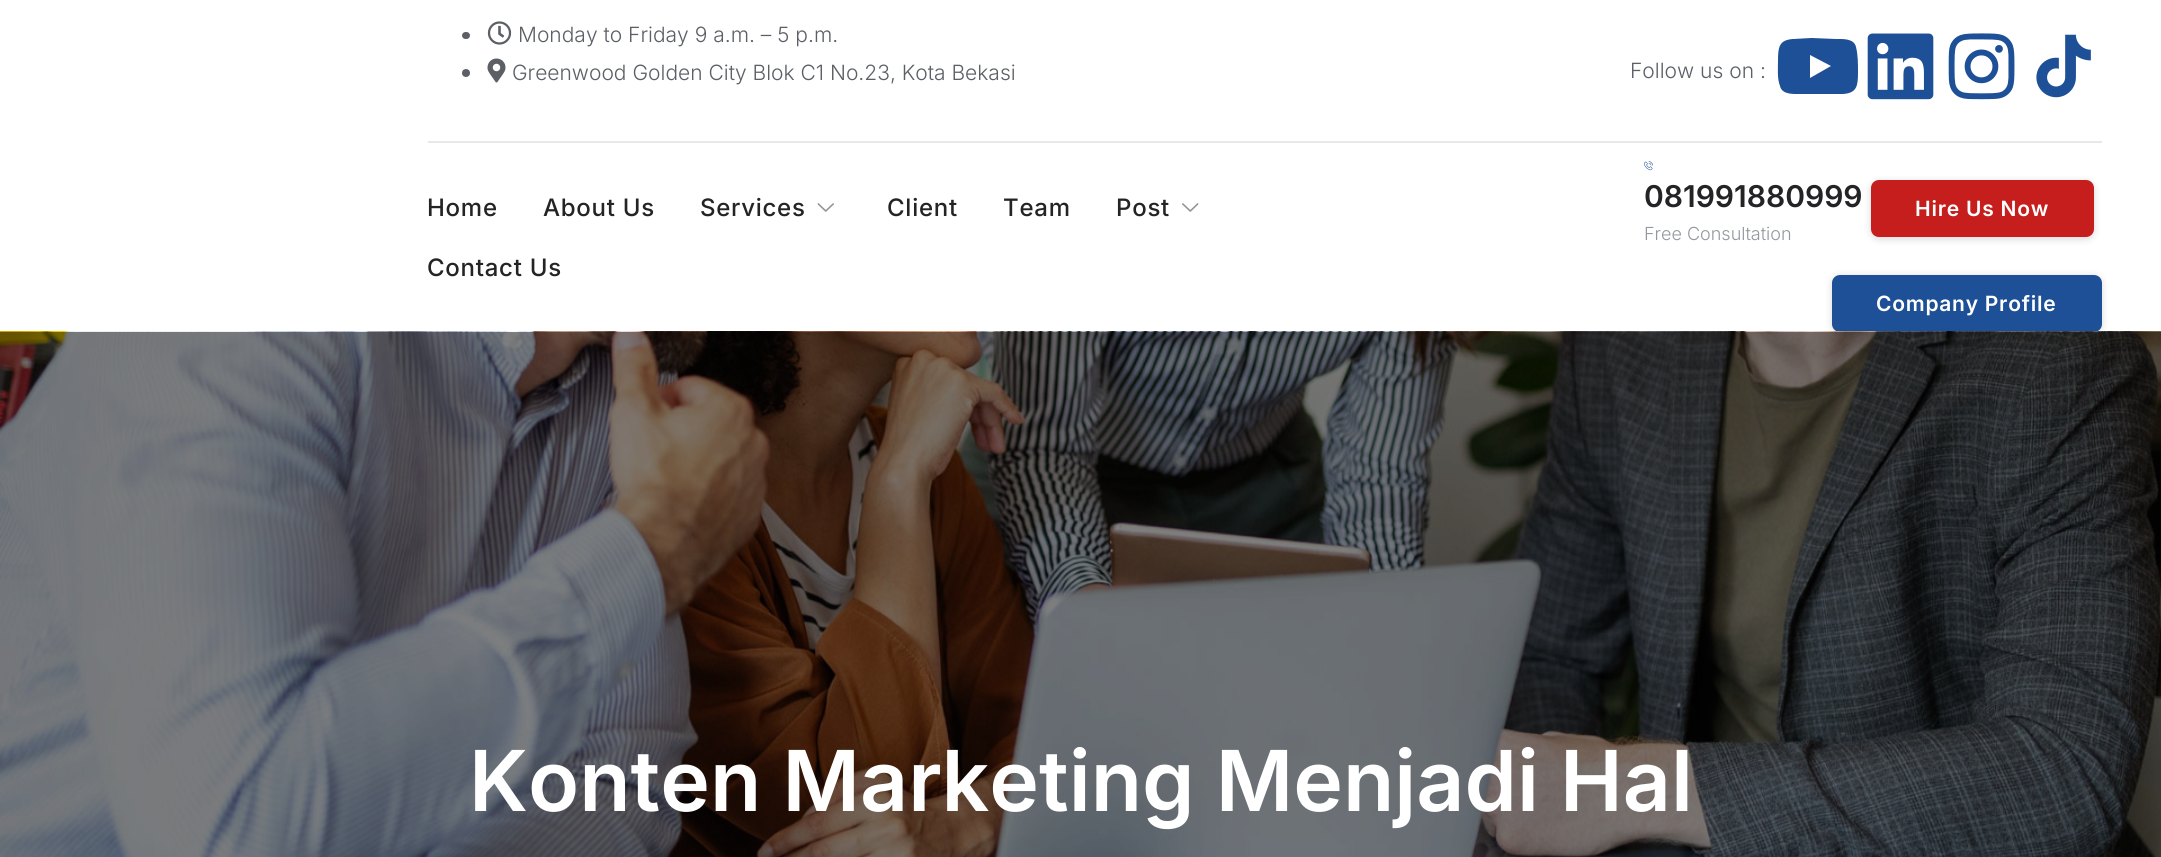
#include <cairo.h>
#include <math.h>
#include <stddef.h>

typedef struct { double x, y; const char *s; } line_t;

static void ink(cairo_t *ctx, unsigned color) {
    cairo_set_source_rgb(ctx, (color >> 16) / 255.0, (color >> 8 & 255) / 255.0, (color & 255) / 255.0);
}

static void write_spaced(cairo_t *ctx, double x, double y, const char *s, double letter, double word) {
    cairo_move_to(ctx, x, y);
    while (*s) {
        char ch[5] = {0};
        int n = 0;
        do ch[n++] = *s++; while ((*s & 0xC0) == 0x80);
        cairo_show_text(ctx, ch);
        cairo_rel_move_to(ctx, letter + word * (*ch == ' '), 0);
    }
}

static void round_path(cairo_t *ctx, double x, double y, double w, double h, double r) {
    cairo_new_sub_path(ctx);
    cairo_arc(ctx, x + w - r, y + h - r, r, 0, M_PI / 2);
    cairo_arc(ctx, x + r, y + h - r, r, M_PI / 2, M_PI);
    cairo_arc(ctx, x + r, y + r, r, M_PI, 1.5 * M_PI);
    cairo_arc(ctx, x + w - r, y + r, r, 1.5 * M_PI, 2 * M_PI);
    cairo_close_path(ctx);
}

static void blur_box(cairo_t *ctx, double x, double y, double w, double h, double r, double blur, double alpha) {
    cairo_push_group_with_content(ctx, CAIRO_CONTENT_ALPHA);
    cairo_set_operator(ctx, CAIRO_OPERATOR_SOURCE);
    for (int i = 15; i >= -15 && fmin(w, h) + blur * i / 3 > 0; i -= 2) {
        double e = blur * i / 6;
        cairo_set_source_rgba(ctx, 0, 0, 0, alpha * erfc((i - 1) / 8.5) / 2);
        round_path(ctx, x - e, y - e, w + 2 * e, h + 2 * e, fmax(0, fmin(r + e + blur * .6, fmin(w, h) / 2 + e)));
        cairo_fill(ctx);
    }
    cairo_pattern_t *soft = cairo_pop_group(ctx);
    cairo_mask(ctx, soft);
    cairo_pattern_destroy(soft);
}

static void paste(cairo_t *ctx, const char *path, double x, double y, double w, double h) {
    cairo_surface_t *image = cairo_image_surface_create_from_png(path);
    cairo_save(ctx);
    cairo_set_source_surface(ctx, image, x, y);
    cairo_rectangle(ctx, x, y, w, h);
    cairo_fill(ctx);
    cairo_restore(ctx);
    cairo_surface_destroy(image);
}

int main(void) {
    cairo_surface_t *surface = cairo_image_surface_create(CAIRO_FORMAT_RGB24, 2161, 857);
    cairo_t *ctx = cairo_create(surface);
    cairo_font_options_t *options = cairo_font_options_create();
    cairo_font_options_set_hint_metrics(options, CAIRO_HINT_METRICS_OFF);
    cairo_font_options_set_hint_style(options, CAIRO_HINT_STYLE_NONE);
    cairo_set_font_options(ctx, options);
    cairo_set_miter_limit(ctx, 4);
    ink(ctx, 0xFFFFFF);
    cairo_paint(ctx);
    ink(ctx, 0xE8E8E8);
    cairo_rectangle(ctx, 428, 141, 1674, 2);
    cairo_fill(ctx);
    ink(ctx, 0x5C6066);
    round_path(ctx, 462, 32, 8, 7, 3.5);
    cairo_fill(ctx);
    paste(ctx, "media/1.png", 487, 21, 25, 24);
    cairo_select_font_face(ctx, "Inter Light", CAIRO_FONT_SLANT_NORMAL, CAIRO_FONT_WEIGHT_NORMAL);
    cairo_set_font_size(ctx, 21);
    cairo_move_to(ctx, 518, 42);
    cairo_show_text(ctx, "Monday to Friday 9 a.m. – 5 p.m.");
    cairo_new_path(ctx);
    cairo_arc(ctx, 466, 73, 4, 0, 2 * M_PI);
    cairo_fill(ctx);
    paste(ctx, "media/2.png", 487, 58, 19, 25);
    cairo_move_to(ctx, 512, 80);
    cairo_show_text(ctx, "Greenwood Golden City Blok C1 No.23, Kota Bekasi");
    cairo_move_to(ctx, 1630, 78);
    cairo_show_text(ctx, "Follow us on :");
    ink(ctx, 0x1D5096);
    cairo_new_path(ctx);
    cairo_move_to(ctx, 1856, 47);
    cairo_curve_to(ctx, 1858, 55, 1858, 64, 1858, 72);
    cairo_curve_to(ctx, 1858, 86, 1857, 93, 1843, 94);
    cairo_line_to(ctx, 1825, 94);
    cairo_line_to(ctx, 1801, 94);
    cairo_curve_to(ctx, 1794, 94, 1782, 95, 1780, 86);
    cairo_curve_to(ctx, 1777, 78, 1778, 69, 1778, 61);
    cairo_curve_to(ctx, 1778, 47, 1779, 40, 1793, 39);
    cairo_line_to(ctx, 1811, 38);
    cairo_line_to(ctx, 1835, 39);
    cairo_curve_to(ctx, 1842, 39, 1854, 38, 1856, 47);
    cairo_close_path(ctx);
    cairo_move_to(ctx, 1810, 78);
    cairo_line_to(ctx, 1831, 66);
    cairo_line_to(ctx, 1810, 55);
    cairo_close_path(ctx);
    cairo_fill(ctx);
    paste(ctx, "media/3.png", 1867, 33, 67, 67);
    paste(ctx, "media/4.png", 1948, 33, 67, 67);
    paste(ctx, "media/5.png", 2036, 34, 55, 64);
    cairo_select_font_face(ctx, "Inter Medium", CAIRO_FONT_SLANT_NORMAL, CAIRO_FONT_WEIGHT_NORMAL);
    cairo_set_font_size(ctx, 24);
    ink(ctx, 0x242325);
    {
        static const line_t items[] = {
            {427, 216, "Home"},
            {543, 216, "About Us"},
            {700, 216, "Services"},
        };
        for (size_t i = 0; i < sizeof items / sizeof *items; i++) {
            write_spaced(ctx, items[i].x, items[i].y, items[i].s, 0.75, 0);
        }
    }
    paste(ctx, "media/6.png", 817, 203, 17, 9);
    {
        static const line_t items[] = {
            {887, 216, "Client"},
            {1003, 216, "Team"},
            {1116, 216, "Post"},
        };
        for (size_t i = 0; i < sizeof items / sizeof *items; i++) {
            write_spaced(ctx, items[i].x, items[i].y, items[i].s, 0.75, 0);
        }
    }
    paste(ctx, "media/7.png", 1182, 203, 17, 9);
    write_spaced(ctx, 427, 276, "Contact Us", 0.75, 0);
    paste(ctx, "media/8.png", 1644, 161, 9, 10);
    cairo_select_font_face(ctx, "Inter SemiBold", CAIRO_FONT_SLANT_NORMAL, CAIRO_FONT_WEIGHT_NORMAL);
    cairo_set_font_size(ctx, 30);
    cairo_move_to(ctx, 1644, 207);
    cairo_show_text(ctx, "081991880999");
    cairo_select_font_face(ctx, "Inter Light", CAIRO_FONT_SLANT_NORMAL, CAIRO_FONT_WEIGHT_NORMAL);
    cairo_set_font_size(ctx, 18);
    ink(ctx, 0x94989E);
    cairo_move_to(ctx, 1644, 240);
    cairo_show_text(ctx, "Free Consultation");
    ink(ctx, 0x000000);
    blur_box(ctx, 1871, 182, 223, 57, 8, 4, 0.15);
    ink(ctx, 0xC61D1D);
    round_path(ctx, 1871, 180, 223, 57, 8);
    cairo_fill(ctx);
    cairo_select_font_face(ctx, "Inter SemiBold", CAIRO_FONT_SLANT_NORMAL, CAIRO_FONT_WEIGHT_NORMAL);
    cairo_set_font_size(ctx, 21);
    ink(ctx, 0xFFFFFF);
    write_spaced(ctx, 1915, 216, "Hire Us Now", 0.75, 0);
    ink(ctx, 0x000000);
    blur_box(ctx, 1832, 276, 270, 57, 8, 4, 0.15);
    ink(ctx, 0x1D5096);
    round_path(ctx, 1832, 275, 270, 57, 8);
    cairo_fill(ctx);
    ink(ctx, 0xFFFFFF);
    write_spaced(ctx, 1876, 311, "Company Profile", 0.75, 0);
    paste(ctx, "media/9.png", 0, 331, 2161, 526);
    cairo_set_font_size(ctx, 84);
    cairo_move_to(ctx, 469, 811);
    cairo_show_text(ctx, "Konten Marketing Menjadi Hal");
    cairo_surface_write_to_png(surface, "image.png");
    cairo_font_options_destroy(options);
    cairo_destroy(ctx);
    cairo_surface_destroy(surface);
    return 0;
}
